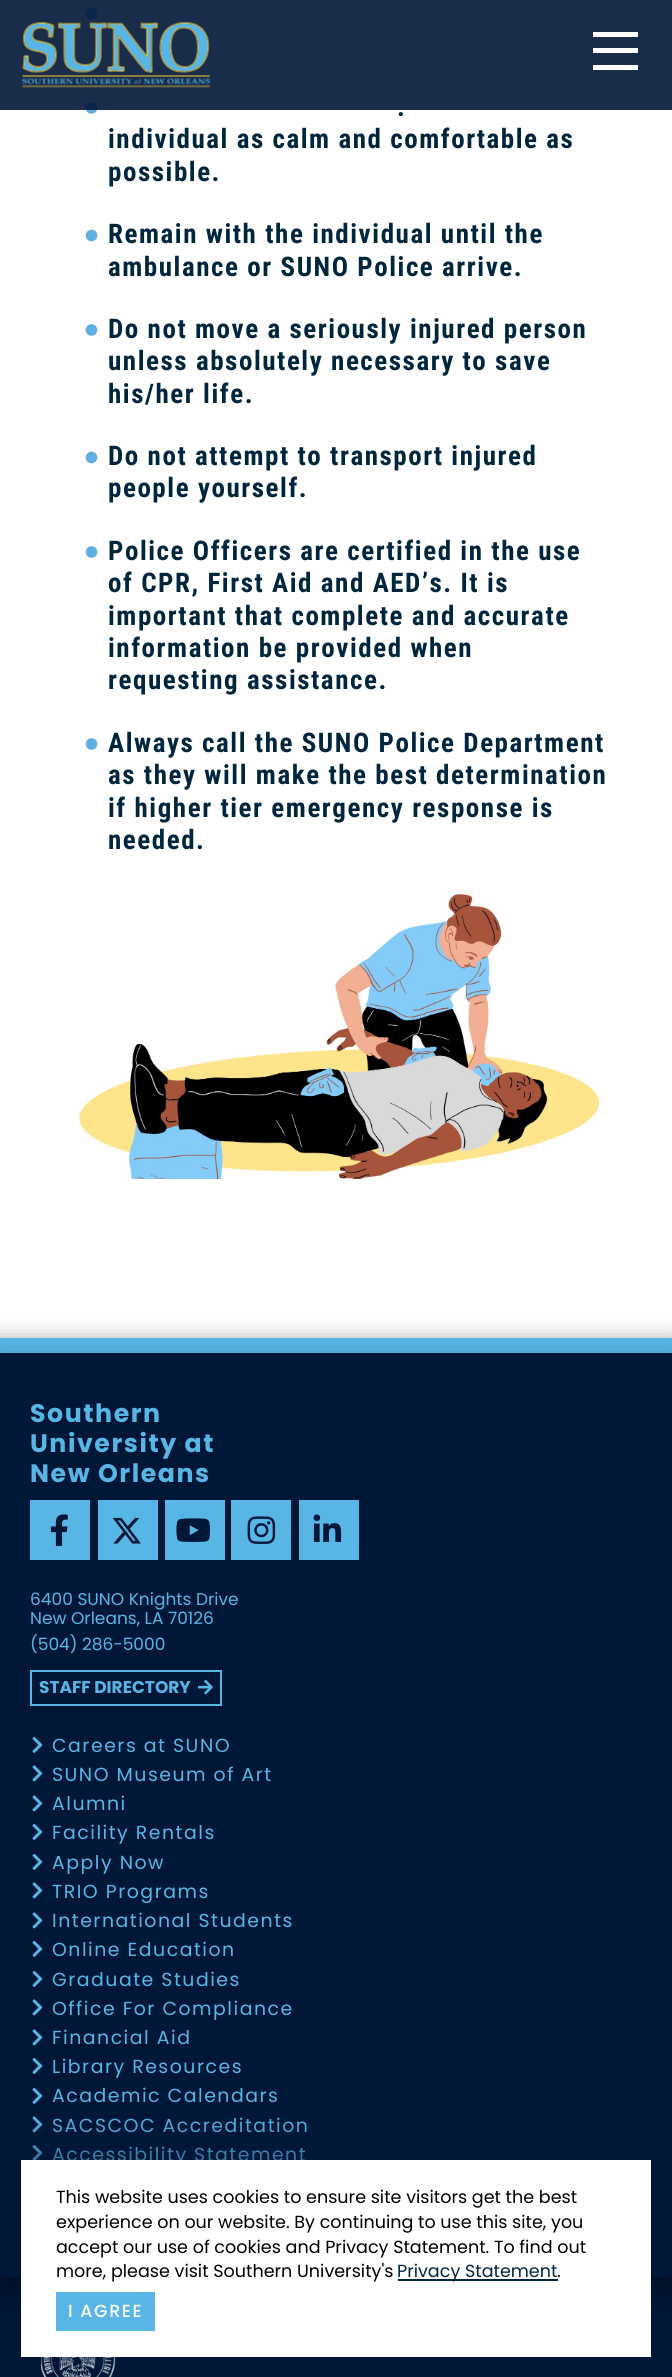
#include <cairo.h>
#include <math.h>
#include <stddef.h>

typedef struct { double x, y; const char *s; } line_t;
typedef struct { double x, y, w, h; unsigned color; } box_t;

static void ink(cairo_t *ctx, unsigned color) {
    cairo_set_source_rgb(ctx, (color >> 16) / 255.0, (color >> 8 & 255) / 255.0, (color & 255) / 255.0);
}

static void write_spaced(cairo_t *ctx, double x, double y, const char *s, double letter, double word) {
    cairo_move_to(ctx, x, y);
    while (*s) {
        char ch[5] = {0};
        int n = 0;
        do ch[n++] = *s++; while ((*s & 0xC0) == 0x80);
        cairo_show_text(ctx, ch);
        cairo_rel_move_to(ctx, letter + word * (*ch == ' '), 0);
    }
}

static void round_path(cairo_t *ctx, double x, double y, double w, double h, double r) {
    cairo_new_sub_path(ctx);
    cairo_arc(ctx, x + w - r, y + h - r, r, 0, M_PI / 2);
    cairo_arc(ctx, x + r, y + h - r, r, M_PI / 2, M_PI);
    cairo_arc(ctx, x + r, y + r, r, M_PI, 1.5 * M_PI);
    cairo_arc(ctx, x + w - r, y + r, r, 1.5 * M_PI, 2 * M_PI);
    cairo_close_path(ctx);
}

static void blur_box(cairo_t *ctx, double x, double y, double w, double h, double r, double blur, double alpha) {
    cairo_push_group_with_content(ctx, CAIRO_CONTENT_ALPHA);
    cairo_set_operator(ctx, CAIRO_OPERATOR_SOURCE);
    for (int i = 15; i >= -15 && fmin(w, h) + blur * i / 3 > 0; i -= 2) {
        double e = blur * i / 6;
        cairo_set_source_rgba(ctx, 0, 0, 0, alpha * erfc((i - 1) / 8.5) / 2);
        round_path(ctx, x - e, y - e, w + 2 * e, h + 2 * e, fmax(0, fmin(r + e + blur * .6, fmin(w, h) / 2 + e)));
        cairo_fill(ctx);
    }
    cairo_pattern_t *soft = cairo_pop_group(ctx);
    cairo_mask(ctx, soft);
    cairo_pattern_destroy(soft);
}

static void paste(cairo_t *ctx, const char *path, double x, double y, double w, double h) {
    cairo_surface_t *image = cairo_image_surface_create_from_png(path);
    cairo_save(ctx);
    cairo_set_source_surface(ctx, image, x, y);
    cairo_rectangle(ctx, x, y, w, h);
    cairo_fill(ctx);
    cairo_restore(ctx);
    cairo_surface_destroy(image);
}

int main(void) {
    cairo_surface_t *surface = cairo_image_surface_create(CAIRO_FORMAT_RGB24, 672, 2377);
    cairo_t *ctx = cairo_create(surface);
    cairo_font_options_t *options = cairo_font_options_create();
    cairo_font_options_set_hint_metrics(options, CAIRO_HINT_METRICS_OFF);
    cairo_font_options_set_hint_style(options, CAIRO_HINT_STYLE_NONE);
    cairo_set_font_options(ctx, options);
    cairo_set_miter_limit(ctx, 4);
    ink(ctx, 0xFFFFFF);
    cairo_paint(ctx);
    paste(ctx, "media/2.png", 85, 7, 13, 13);
    paste(ctx, "media/3.png", 85, 102, 13, 12);
    cairo_set_source_rgba(ctx, 0, 0.09, 0.22, 0.9);
    cairo_rectangle(ctx, 0, 0, 672, 110);
    cairo_fill(ctx);
    paste(ctx, "media/1.png", 22, 22, 189, 66);
    {
        static const box_t items[] = {
            {593, 32, 45, 5, 0xFFFFFF},
            {593, 48, 45, 5, 0xFFFFFF},
            {593, 65, 45, 5, 0xFFFFFF},
        };
        for (size_t i = 0; i < sizeof items / sizeof *items; i++) {
            ink(ctx, items[i].color);
            cairo_rectangle(ctx, items[i].x, items[i].y, items[i].w, items[i].h);
            cairo_fill(ctx);
        }
    }
    cairo_select_font_face(ctx, "Roboto Condensed", CAIRO_FONT_SLANT_NORMAL, CAIRO_FONT_WEIGHT_BOLD);
    cairo_set_font_size(ctx, 27);
    ink(ctx, 0x00263E);
    {
        static const line_t items[] = {
            {397, 116, "."},
            {108, 148, "individual as calm and comfortable as"},
            {108, 181, "possible."},
        };
        for (size_t i = 0; i < sizeof items / sizeof *items; i++) {
            write_spaced(ctx, items[i].x, items[i].y, items[i].s, 1.55, 0);
        }
    }
    paste(ctx, "media/2.png", 85, 229, 13, 13);
    write_spaced(ctx, 108, 243, "Remain with the individual until the", 1.55, 0);
    write_spaced(ctx, 108, 276, "ambulance or SUNO Police arrive.", 1.55, 0);
    paste(ctx, "media/3.png", 85, 324, 13, 12);
    {
        static const line_t items[] = {
            {108, 338, "Do not move a seriously injured person"},
            {108, 370, "unless absolutely necessary to save"},
            {108, 403, "his/her life."},
        };
        for (size_t i = 0; i < sizeof items / sizeof *items; i++) {
            write_spaced(ctx, items[i].x, items[i].y, items[i].s, 1.55, 0);
        }
    }
    paste(ctx, "media/2.png", 85, 451, 13, 13);
    write_spaced(ctx, 108, 465, "Do not attempt to transport injured", 1.55, 0);
    write_spaced(ctx, 108, 497, "people yourself.", 1.55, 0);
    paste(ctx, "media/3.png", 85, 546, 13, 12);
    {
        static const line_t items[] = {
            {108, 560, "Police Officers are certified in the use"},
            {108, 592, "of CPR, First Aid and AED’s. It is"},
            {108, 625, "important that complete and accurate"},
            {108, 657, "information be provided when"},
            {108, 689, "requesting assistance."},
        };
        for (size_t i = 0; i < sizeof items / sizeof *items; i++) {
            write_spaced(ctx, items[i].x, items[i].y, items[i].s, 1.55, 0);
        }
    }
    paste(ctx, "media/3.png", 85, 738, 13, 12);
    {
        static const line_t items[] = {
            {108, 752, "Always call the SUNO Police Department"},
            {108, 784, "as they will make the best determination"},
            {108, 817, "if higher tier emergency response is"},
            {108, 849, "needed."},
        };
        for (size_t i = 0; i < sizeof items / sizeof *items; i++) {
            write_spaced(ctx, items[i].x, items[i].y, items[i].s, 1.55, 0);
        }
    }
    paste(ctx, "media/4.png", 78, 893, 522, 286);
    ink(ctx, 0x000000);
    blur_box(ctx, -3, 1338, 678, 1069, 0, 10, 0.3);
    ink(ctx, 0x001738);
    cairo_rectangle(ctx, 0, 1353, 672, 1024);
    cairo_fill(ctx);
    ink(ctx, 0x58B6E7);
    cairo_rectangle(ctx, 0, 1338, 672, 15);
    cairo_fill(ctx);
    cairo_save(ctx);
    cairo_set_fill_rule(ctx, CAIRO_FILL_RULE_EVEN_ODD);
    cairo_new_path(ctx);
    cairo_move_to(ctx, 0, 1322);
    cairo_line_to(ctx, 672, 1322);
    cairo_line_to(ctx, 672, 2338);
    cairo_line_to(ctx, 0, 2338);
    cairo_close_path(ctx);
    cairo_move_to(ctx, 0, 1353);
    cairo_line_to(ctx, 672, 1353);
    cairo_line_to(ctx, 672, 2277);
    cairo_line_to(ctx, 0, 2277);
    cairo_close_path(ctx);
    cairo_clip(ctx);
    ink(ctx, 0x000000);
    blur_box(ctx, 0, 1368, 672, 924, 0, 15, 0.5);
    cairo_restore(ctx);
    cairo_select_font_face(ctx, "Poppins", CAIRO_FONT_SLANT_NORMAL, CAIRO_FONT_WEIGHT_BOLD);
    cairo_set_font_size(ctx, 25.25);
    {
        static const line_t items[] = {
            {30, 1422, "Southern"},
            {30, 1452, "University at"},
            {30, 1482, "New Orleans"},
        };
        for (size_t i = 0; i < sizeof items / sizeof *items; i++) {
            write_spaced(ctx, items[i].x, items[i].y, items[i].s, 1.55, 0);
        }
    }
    cairo_rectangle(ctx, 30, 1500, 60, 60);
    cairo_fill(ctx);
    paste(ctx, "media/5.png", 50, 1514, 18, 32);
    cairo_rectangle(ctx, 98, 1500, 60, 60);
    cairo_fill(ctx);
    paste(ctx, "media/6.png", 112, 1517, 29, 27);
    cairo_rectangle(ctx, 165, 1500, 60, 60);
    cairo_fill(ctx);
    paste(ctx, "media/7.png", 176, 1518, 34, 24);
    cairo_rectangle(ctx, 231, 1500, 60, 60);
    cairo_fill(ctx);
    paste(ctx, "media/8.png", 247, 1516, 29, 28);
    cairo_rectangle(ctx, 299, 1500, 60, 60);
    cairo_fill(ctx);
    paste(ctx, "media/9.png", 313, 1514, 29, 28);
    cairo_select_font_face(ctx, "Poppins", CAIRO_FONT_SLANT_NORMAL, CAIRO_FONT_WEIGHT_NORMAL);
    cairo_set_font_size(ctx, 17);
    {
        static const line_t items[] = {
            {30, 1605, "6400 SUNO Knights Drive"},
            {30, 1624, "New Orleans, LA 70126"},
            {30, 1650, "(504) 286-5000"},
        };
        for (size_t i = 0; i < sizeof items / sizeof *items; i++) {
            cairo_move_to(ctx, items[i].x, items[i].y);
            cairo_show_text(ctx, items[i].s);
        }
    }
    cairo_rectangle(ctx, 31, 1671, 190, 34);
    cairo_stroke(ctx);
    cairo_select_font_face(ctx, "Poppins", CAIRO_FONT_SLANT_NORMAL, CAIRO_FONT_WEIGHT_BOLD);
    cairo_move_to(ctx, 39, 1693);
    cairo_show_text(ctx, "STAFF DIRECTORY");
    paste(ctx, "media/10.png", 198, 1679, 15, 16);
    paste(ctx, "media/11.png", 32, 1736, 11, 17);
    cairo_select_font_face(ctx, "Poppins", CAIRO_FONT_SLANT_NORMAL, CAIRO_FONT_WEIGHT_NORMAL);
    cairo_set_font_size(ctx, 18.9);
    write_spaced(ctx, 52, 1752, "Careers at SUNO", 1.5, 0);
    paste(ctx, "media/12.png", 32, 1765, 11, 17);
    write_spaced(ctx, 52, 1781, "SUNO Museum of Art", 1.5, 0);
    paste(ctx, "media/12.png", 32, 1795, 11, 17);
    write_spaced(ctx, 52, 1810, "Alumni", 1.5, 0);
    paste(ctx, "media/11.png", 32, 1823, 11, 17);
    write_spaced(ctx, 52, 1839, "Facility Rentals", 1.5, 0);
    paste(ctx, "media/11.png", 32, 1853, 11, 17);
    write_spaced(ctx, 52, 1869, "Apply Now", 1.5, 0);
    paste(ctx, "media/12.png", 32, 1882, 11, 17);
    write_spaced(ctx, 52, 1898, "TRIO Programs", 1.5, 0);
    paste(ctx, "media/12.png", 32, 1912, 11, 17);
    write_spaced(ctx, 52, 1927, "International Students", 1.5, 0);
    paste(ctx, "media/11.png", 32, 1940, 11, 17);
    write_spaced(ctx, 52, 1956, "Online Education", 1.5, 0);
    paste(ctx, "media/11.png", 32, 1970, 11, 17);
    write_spaced(ctx, 52, 1986, "Graduate Studies", 1.5, 0);
    paste(ctx, "media/12.png", 32, 1999, 11, 17);
    write_spaced(ctx, 52, 2015, "Office For Compliance", 1.5, 0);
    paste(ctx, "media/12.png", 32, 2029, 11, 17);
    write_spaced(ctx, 52, 2044, "Financial Aid", 1.5, 0);
    paste(ctx, "media/11.png", 32, 2057, 11, 17);
    write_spaced(ctx, 52, 2073, "Library Resources", 1.5, 0);
    paste(ctx, "media/11.png", 32, 2087, 11, 17);
    write_spaced(ctx, 52, 2102, "Academic Calendars", 1.5, 0);
    paste(ctx, "media/12.png", 32, 2116, 11, 17);
    write_spaced(ctx, 52, 2132, "SACSCOC Accreditation", 1.5, 0);
    paste(ctx, "media/13.png", 32, 2144, 11, 16);
    write_spaced(ctx, 52, 2161, "Accessibility Statement", 1.5, 0);
    paste(ctx, "media/14.png", 41, 2357, 75, 20);
    ink(ctx, 0x001738);
    blur_box(ctx, 17, 2156, 639, 205, 0, 27, 0.75);
    ink(ctx, 0xFFFFFF);
    cairo_rectangle(ctx, 21, 2160, 630, 197);
    cairo_fill(ctx);
    cairo_set_font_size(ctx, 17.55);
    ink(ctx, 0x000000);
    {
        static const line_t items[] = {
            {56, 2203, "This website uses cookies to ensure site visitors get the best"},
            {56, 2228, "experience on our website. By continuing to use this site, you"},
            {56, 2253, "accept our use of cookies and Privacy Statement. To find out"},
            {56, 2277, "more, please visit Southern University's"},
        };
        for (size_t i = 0; i < sizeof items / sizeof *items; i++) {
            cairo_move_to(ctx, items[i].x, items[i].y);
            cairo_show_text(ctx, items[i].s);
        }
    }
    ink(ctx, 0x00263E);
    cairo_rectangle(ctx, 398, 2279, 160, 2);
    cairo_fill(ctx);
    cairo_move_to(ctx, 397, 2277);
    cairo_show_text(ctx, "Privacy Statement");
    ink(ctx, 0x000000);
    cairo_move_to(ctx, 557, 2277);
    cairo_show_text(ctx, ".");
    ink(ctx, 0x58B6E7);
    cairo_rectangle(ctx, 56, 2292, 99, 39);
    cairo_fill(ctx);
    cairo_select_font_face(ctx, "Poppins Medium", CAIRO_FONT_SLANT_NORMAL, CAIRO_FONT_WEIGHT_NORMAL);
    ink(ctx, 0xFFFFFF);
    write_spaced(ctx, 68, 2317, "I AGREE", 1.55, 0);
    cairo_surface_write_to_png(surface, "image.png");
    cairo_font_options_destroy(options);
    cairo_destroy(ctx);
    cairo_surface_destroy(surface);
    return 0;
}
